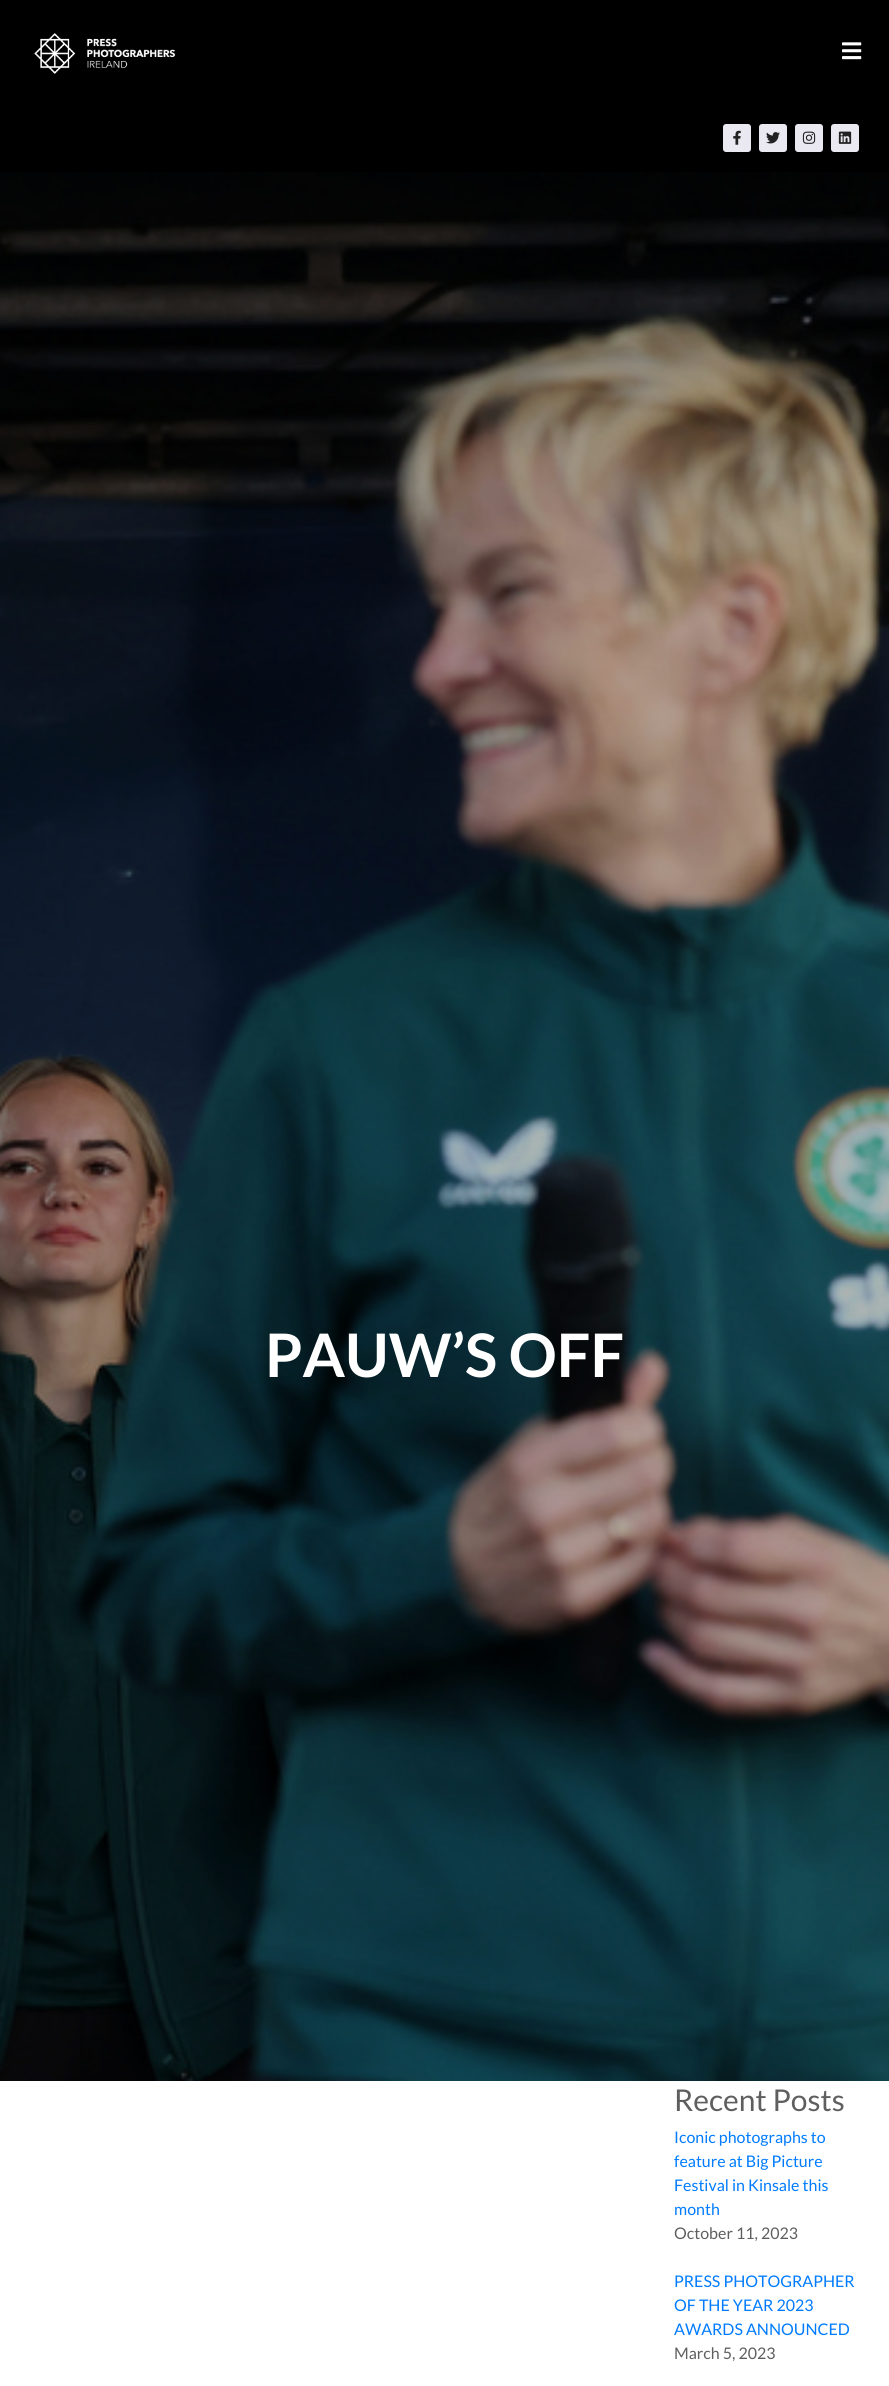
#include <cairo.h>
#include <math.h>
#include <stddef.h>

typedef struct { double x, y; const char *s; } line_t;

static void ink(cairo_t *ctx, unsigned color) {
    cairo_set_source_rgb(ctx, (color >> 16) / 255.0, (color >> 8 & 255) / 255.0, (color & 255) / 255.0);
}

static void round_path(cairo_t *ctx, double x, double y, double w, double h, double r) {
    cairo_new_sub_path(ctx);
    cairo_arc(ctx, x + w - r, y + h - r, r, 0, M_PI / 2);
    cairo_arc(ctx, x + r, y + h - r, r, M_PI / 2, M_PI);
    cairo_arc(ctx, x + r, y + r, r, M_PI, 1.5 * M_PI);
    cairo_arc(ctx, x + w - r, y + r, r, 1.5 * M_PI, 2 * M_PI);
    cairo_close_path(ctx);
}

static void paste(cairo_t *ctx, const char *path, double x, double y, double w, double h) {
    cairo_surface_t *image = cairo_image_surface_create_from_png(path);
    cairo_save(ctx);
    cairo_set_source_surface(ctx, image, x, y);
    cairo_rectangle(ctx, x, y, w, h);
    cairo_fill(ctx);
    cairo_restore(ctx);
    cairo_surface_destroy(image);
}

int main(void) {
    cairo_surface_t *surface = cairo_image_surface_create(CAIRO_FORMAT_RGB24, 889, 2386);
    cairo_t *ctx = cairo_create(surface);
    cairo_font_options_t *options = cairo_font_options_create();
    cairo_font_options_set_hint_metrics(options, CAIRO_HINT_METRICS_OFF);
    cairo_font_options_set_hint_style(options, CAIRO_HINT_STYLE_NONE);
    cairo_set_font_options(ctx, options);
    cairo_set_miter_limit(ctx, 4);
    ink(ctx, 0xFFFFFF);
    cairo_paint(ctx);
    ink(ctx, 0x000000);
    cairo_rectangle(ctx, 0, 0, 889, 172);
    cairo_fill(ctx);
    paste(ctx, "media/1.png", 34, 33, 142, 41);
    paste(ctx, "media/2.png", 842, 42, 20, 18);
    ink(ctx, 0xEAE9F2);
    round_path(ctx, 723, 124, 28, 28, 3);
    cairo_fill(ctx);
    paste(ctx, "media/3.png", 733, 130, 8, 15);
    round_path(ctx, 759, 124, 28, 28, 3);
    cairo_fill(ctx);
    paste(ctx, "media/4.png", 766, 132, 14, 12);
    round_path(ctx, 795, 124, 28, 28, 3);
    cairo_fill(ctx);
    paste(ctx, "media/5.png", 802, 131, 14, 13);
    round_path(ctx, 831, 124, 28, 28, 3);
    cairo_fill(ctx);
    paste(ctx, "media/6.png", 838, 131, 14, 13);
    paste(ctx, "media/7.png", 0, 172, 889, 1909);
    cairo_select_font_face(ctx, "Lato", CAIRO_FONT_SLANT_NORMAL, CAIRO_FONT_WEIGHT_BOLD);
    cairo_set_font_size(ctx, 60);
    ink(ctx, 0xFFFFFF);
    cairo_move_to(ctx, 265, 1377);
    cairo_show_text(ctx, "PAUW’S OFF");
    cairo_select_font_face(ctx, "Lato", CAIRO_FONT_SLANT_NORMAL, CAIRO_FONT_WEIGHT_NORMAL);
    cairo_set_font_size(ctx, 30);
    ink(ctx, 0x5F5F5F);
    cairo_move_to(ctx, 674, 2111);
    cairo_show_text(ctx, "Recent Posts");
    cairo_set_font_size(ctx, 16);
    ink(ctx, 0x007BFF);
    {
        static const line_t items[] = {
            {674, 2143, "Iconic photographs to"},
            {674, 2167, "feature at Big Picture"},
            {674, 2191, "Festival in Kinsale this"},
            {674, 2215, "month"},
        };
        for (size_t i = 0; i < sizeof items / sizeof *items; i++) {
            cairo_move_to(ctx, items[i].x, items[i].y);
            cairo_show_text(ctx, items[i].s);
        }
    }
    ink(ctx, 0x5F5F5F);
    cairo_move_to(ctx, 674, 2239);
    cairo_show_text(ctx, "October 11, 2023");
    ink(ctx, 0x007BFF);
    {
        static const line_t items[] = {
            {674, 2287, "PRESS PHOTOGRAPHER"},
            {674, 2311, "OF THE YEAR 2023"},
            {674, 2335, "AWARDS ANNOUNCED"},
        };
        for (size_t i = 0; i < sizeof items / sizeof *items; i++) {
            cairo_move_to(ctx, items[i].x, items[i].y);
            cairo_show_text(ctx, items[i].s);
        }
    }
    ink(ctx, 0x5F5F5F);
    cairo_move_to(ctx, 674, 2359);
    cairo_show_text(ctx, "March 5, 2023");
    cairo_surface_write_to_png(surface, "image.png");
    cairo_font_options_destroy(options);
    cairo_destroy(ctx);
    cairo_surface_destroy(surface);
    return 0;
}
